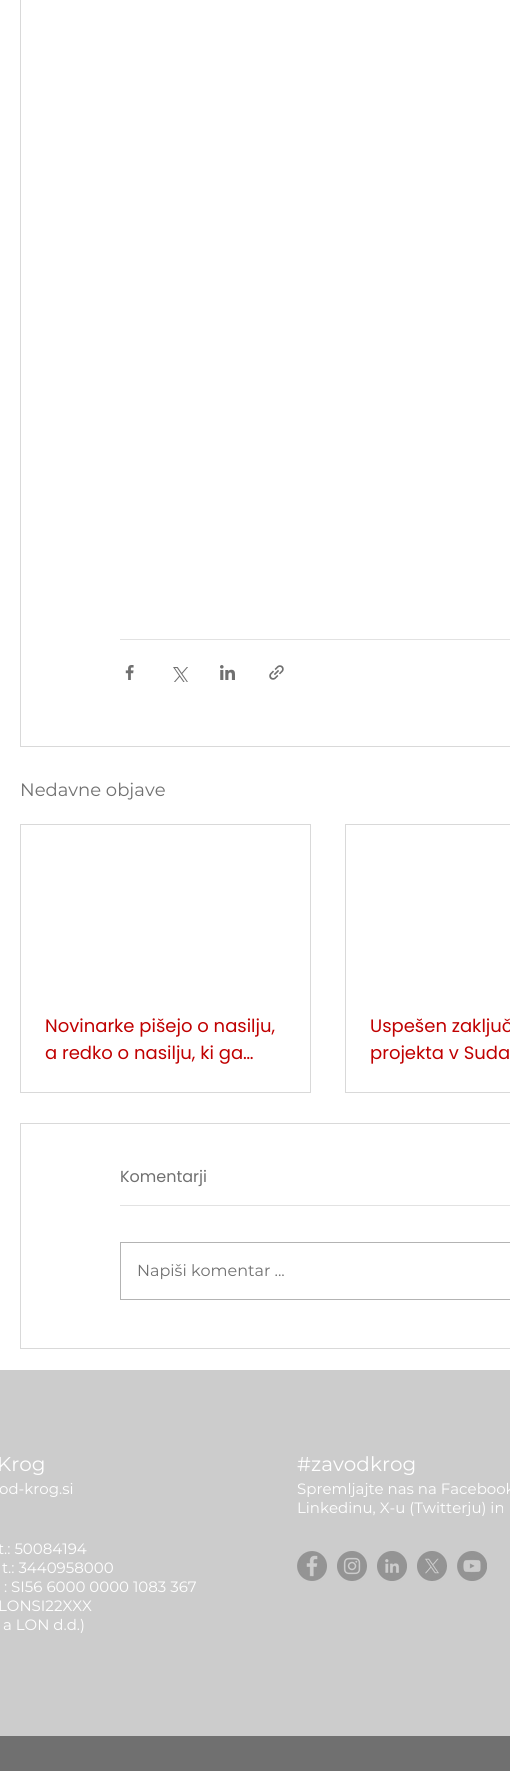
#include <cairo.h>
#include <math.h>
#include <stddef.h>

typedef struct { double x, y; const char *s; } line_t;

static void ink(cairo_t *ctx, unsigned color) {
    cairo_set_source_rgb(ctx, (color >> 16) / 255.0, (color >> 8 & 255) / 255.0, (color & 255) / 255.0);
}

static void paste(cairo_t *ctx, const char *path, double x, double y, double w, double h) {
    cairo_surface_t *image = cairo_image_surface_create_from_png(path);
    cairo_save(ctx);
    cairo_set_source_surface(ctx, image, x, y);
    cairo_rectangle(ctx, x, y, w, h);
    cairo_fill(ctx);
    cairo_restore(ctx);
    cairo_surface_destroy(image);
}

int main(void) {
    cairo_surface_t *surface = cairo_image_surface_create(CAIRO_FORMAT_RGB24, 510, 1771);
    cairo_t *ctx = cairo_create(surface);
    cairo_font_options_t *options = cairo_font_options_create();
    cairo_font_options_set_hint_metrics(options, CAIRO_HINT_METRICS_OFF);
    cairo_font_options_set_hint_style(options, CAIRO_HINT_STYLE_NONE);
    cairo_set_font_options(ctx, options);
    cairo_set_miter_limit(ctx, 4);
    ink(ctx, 0xFFFFFF);
    cairo_paint(ctx);
    cairo_rectangle(ctx, 20.5, -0.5, 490, 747);
    ink(ctx, 0xD9D9D9);
    cairo_set_line_width(ctx, 1);
    cairo_stroke(ctx);
    ink(ctx, 0xE2E2E2);
    cairo_rectangle(ctx, 120, 639, 390, 1);
    cairo_fill(ctx);
    paste(ctx, "media/1.png", 125, 665, 9, 15);
    paste(ctx, "media/2.png", 173, 667, 15, 15);
    paste(ctx, "media/3.png", 220, 665, 15, 15);
    paste(ctx, "media/4.png", 269, 665, 15, 15);
    cairo_select_font_face(ctx, "Montserrat", CAIRO_FONT_SLANT_NORMAL, CAIRO_FONT_WEIGHT_NORMAL);
    cairo_set_font_size(ctx, 18);
    ink(ctx, 0x707070);
    cairo_move_to(ctx, 20, 796);
    cairo_show_text(ctx, "Nedavne objave");
    cairo_rectangle(ctx, 20.5, 824.5, 290, 268);
    ink(ctx, 0xD9D9D9);
    cairo_stroke(ctx);
    cairo_select_font_face(ctx, "Poppins", CAIRO_FONT_SLANT_NORMAL, CAIRO_FONT_WEIGHT_NORMAL);
    ink(ctx, 0xC00000);
    cairo_move_to(ctx, 45, 1032);
    cairo_show_text(ctx, "Novinarke pišejo o nasilju,");
    cairo_move_to(ctx, 45, 1059);
    cairo_show_text(ctx, "a redko o nasilju, ki ga…");
    cairo_rectangle(ctx, 345.5, 824.5, 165, 268);
    ink(ctx, 0xD9D9D9);
    cairo_stroke(ctx);
    ink(ctx, 0xC00000);
    cairo_move_to(ctx, 370, 1032);
    cairo_show_text(ctx, "Uspešen zaključ");
    cairo_move_to(ctx, 370, 1059);
    cairo_show_text(ctx, "projekta v Suda");
    cairo_rectangle(ctx, 20.5, 1123.5, 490, 225);
    ink(ctx, 0xD9D9D9);
    cairo_stroke(ctx);
    cairo_set_font_size(ctx, 16);
    ink(ctx, 0x707070);
    cairo_move_to(ctx, 120, 1182);
    cairo_show_text(ctx, "Komentarji");
    ink(ctx, 0xE2E2E2);
    cairo_rectangle(ctx, 120, 1205, 390, 1);
    cairo_fill(ctx);
    cairo_rectangle(ctx, 120.5, 1242.5, 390, 57);
    ink(ctx, 0xB3B3B3);
    cairo_stroke(ctx);
    cairo_select_font_face(ctx, "Montserrat", CAIRO_FONT_SLANT_NORMAL, CAIRO_FONT_WEIGHT_NORMAL);
    ink(ctx, 0x707070);
    cairo_move_to(ctx, 137, 1276);
    cairo_show_text(ctx, "Napiši komentar ...");
    ink(ctx, 0xCCCCCC);
    cairo_rectangle(ctx, 0, 1370, 510, 366);
    cairo_fill(ctx);
    cairo_set_font_size(ctx, 20);
    ink(ctx, 0xFFFFFF);
    cairo_move_to(ctx, -3, 1471);
    cairo_show_text(ctx, "Krog");
    cairo_set_font_size(ctx, 15);
    {
        static const line_t items[] = {
            {-1, 1494, "od-krog.si"},
            {-2, 1554, "t.: 50084194"},
            {2, 1573, "t.: 3440958000"},
            {4, 1592, ": SI56 6000 0000 1083 367"},
            {-2, 1611, "LONSI22XXX"},
            {3, 1630, "a LON d.d.)"},
        };
        for (size_t i = 0; i < sizeof items / sizeof *items; i++) {
            cairo_move_to(ctx, items[i].x, items[i].y);
            cairo_show_text(ctx, items[i].s);
        }
    }
    cairo_set_font_size(ctx, 20);
    cairo_move_to(ctx, 297, 1471);
    cairo_show_text(ctx, "#zavodkrog");
    cairo_set_font_size(ctx, 15);
    cairo_move_to(ctx, 297, 1494);
    cairo_show_text(ctx, "Spremljajte nas na Facebook");
    cairo_move_to(ctx, 297, 1513);
    cairo_show_text(ctx, "Linkedinu, X-u (Twitterju) in");
    paste(ctx, "media/5.png", 297, 1551, 30, 30);
    paste(ctx, "media/6.png", 337, 1551, 30, 30);
    paste(ctx, "media/7.png", 377, 1551, 30, 30);
    paste(ctx, "media/8.png", 417, 1551, 30, 30);
    paste(ctx, "media/9.png", 457, 1551, 30, 30);
    ink(ctx, 0x707070);
    cairo_rectangle(ctx, 0, 1736, 510, 35);
    cairo_fill(ctx);
    cairo_surface_write_to_png(surface, "image.png");
    cairo_font_options_destroy(options);
    cairo_destroy(ctx);
    cairo_surface_destroy(surface);
    return 0;
}
